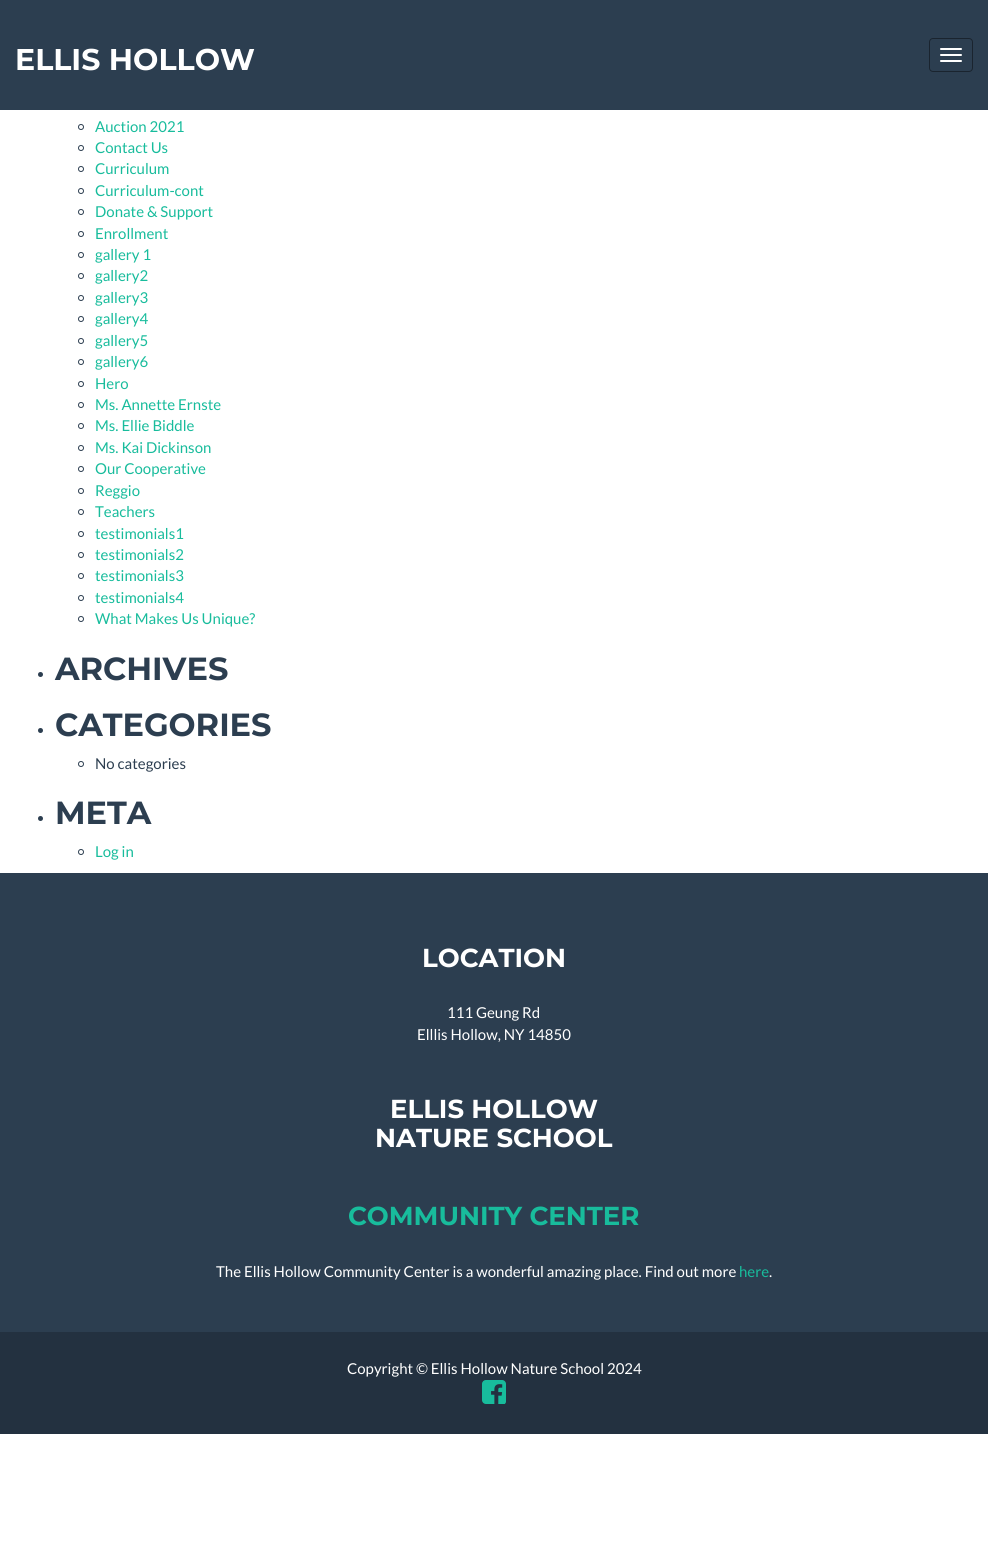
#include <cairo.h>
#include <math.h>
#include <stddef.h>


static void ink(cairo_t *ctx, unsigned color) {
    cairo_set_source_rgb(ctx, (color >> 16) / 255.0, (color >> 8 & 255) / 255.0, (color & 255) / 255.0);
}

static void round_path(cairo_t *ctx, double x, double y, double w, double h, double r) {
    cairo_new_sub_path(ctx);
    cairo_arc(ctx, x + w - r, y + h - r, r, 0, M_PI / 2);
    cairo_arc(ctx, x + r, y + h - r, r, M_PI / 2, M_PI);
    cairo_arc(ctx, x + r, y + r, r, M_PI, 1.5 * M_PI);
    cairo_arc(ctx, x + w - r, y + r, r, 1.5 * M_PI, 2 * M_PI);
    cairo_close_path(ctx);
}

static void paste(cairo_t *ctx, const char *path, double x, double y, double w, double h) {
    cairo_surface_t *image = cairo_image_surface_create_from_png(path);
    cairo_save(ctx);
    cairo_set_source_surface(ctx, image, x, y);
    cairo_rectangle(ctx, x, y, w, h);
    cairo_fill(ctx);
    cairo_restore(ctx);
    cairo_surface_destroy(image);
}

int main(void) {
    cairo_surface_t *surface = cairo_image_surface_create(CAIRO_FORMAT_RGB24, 988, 1550);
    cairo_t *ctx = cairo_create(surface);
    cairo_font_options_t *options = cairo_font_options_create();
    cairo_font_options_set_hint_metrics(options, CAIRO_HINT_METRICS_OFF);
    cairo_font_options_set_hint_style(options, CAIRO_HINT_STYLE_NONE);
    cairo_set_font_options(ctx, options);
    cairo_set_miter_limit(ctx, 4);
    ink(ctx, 0xFFFFFF);
    cairo_paint(ctx);
    ink(ctx, 0x2C3E50);
    cairo_rectangle(ctx, 0, 0, 988, 110);
    cairo_fill(ctx);
    cairo_select_font_face(ctx, "Montserrat", CAIRO_FONT_SLANT_NORMAL, CAIRO_FONT_WEIGHT_BOLD);
    cairo_set_font_size(ctx, 30);
    ink(ctx, 0xFFFFFF);
    cairo_move_to(ctx, 15, 70);
    cairo_show_text(ctx, "ELLIS HOLLOW");
    round_path(ctx, 929.5, 38.5, 43, 33, 3.5);
    ink(ctx, 0x1A242F);
    cairo_set_line_width(ctx, 1);
    cairo_stroke(ctx);
    ink(ctx, 0xFFFFFF);
    round_path(ctx, 940, 48, 22, 2, 1);
    cairo_fill(ctx);
    round_path(ctx, 940, 54, 22, 2, 1);
    cairo_fill(ctx);
    round_path(ctx, 940, 60, 22, 2, 1);
    cairo_fill(ctx);
    cairo_arc(ctx, 81, 127, 2.5, 0, 2 * M_PI);
    ink(ctx, 0x2C3E50);
    cairo_stroke(ctx);
    cairo_select_font_face(ctx, "Lato", CAIRO_FONT_SLANT_NORMAL, CAIRO_FONT_WEIGHT_NORMAL);
    cairo_set_font_size(ctx, 15);
    ink(ctx, 0x18BC9C);
    cairo_move_to(ctx, 95, 132);
    cairo_show_text(ctx, "Auction 2021");
    cairo_new_path(ctx);
    cairo_arc(ctx, 81, 148, 2.5, 0, 2 * M_PI);
    ink(ctx, 0x2C3E50);
    cairo_stroke(ctx);
    ink(ctx, 0x18BC9C);
    cairo_move_to(ctx, 95, 153);
    cairo_show_text(ctx, "Contact Us");
    cairo_new_path(ctx);
    cairo_arc(ctx, 81, 169, 2.5, 0, 2 * M_PI);
    ink(ctx, 0x2C3E50);
    cairo_stroke(ctx);
    ink(ctx, 0x18BC9C);
    cairo_move_to(ctx, 95, 174);
    cairo_show_text(ctx, "Curriculum");
    cairo_new_path(ctx);
    cairo_arc(ctx, 81, 191, 2.5, 0, 2 * M_PI);
    ink(ctx, 0x2C3E50);
    cairo_stroke(ctx);
    ink(ctx, 0x18BC9C);
    cairo_move_to(ctx, 95, 196);
    cairo_show_text(ctx, "Curriculum-cont");
    cairo_new_path(ctx);
    cairo_arc(ctx, 81, 212, 2.5, 0, 2 * M_PI);
    ink(ctx, 0x2C3E50);
    cairo_stroke(ctx);
    ink(ctx, 0x18BC9C);
    cairo_move_to(ctx, 95, 217);
    cairo_show_text(ctx, "Donate & Support");
    cairo_new_path(ctx);
    cairo_arc(ctx, 81, 234, 2.5, 0, 2 * M_PI);
    ink(ctx, 0x2C3E50);
    cairo_stroke(ctx);
    ink(ctx, 0x18BC9C);
    cairo_move_to(ctx, 95, 239);
    cairo_show_text(ctx, "Enrollment");
    cairo_new_path(ctx);
    cairo_arc(ctx, 81, 255, 2.5, 0, 2 * M_PI);
    ink(ctx, 0x2C3E50);
    cairo_stroke(ctx);
    ink(ctx, 0x18BC9C);
    cairo_move_to(ctx, 95, 260);
    cairo_show_text(ctx, "gallery 1");
    cairo_new_path(ctx);
    cairo_arc(ctx, 81, 276, 2.5, 0, 2 * M_PI);
    ink(ctx, 0x2C3E50);
    cairo_stroke(ctx);
    ink(ctx, 0x18BC9C);
    cairo_move_to(ctx, 95, 281);
    cairo_show_text(ctx, "gallery2");
    cairo_new_path(ctx);
    cairo_arc(ctx, 81, 298, 2.5, 0, 2 * M_PI);
    ink(ctx, 0x2C3E50);
    cairo_stroke(ctx);
    ink(ctx, 0x18BC9C);
    cairo_move_to(ctx, 95, 303);
    cairo_show_text(ctx, "gallery3");
    cairo_new_path(ctx);
    cairo_arc(ctx, 81, 319, 2.5, 0, 2 * M_PI);
    ink(ctx, 0x2C3E50);
    cairo_stroke(ctx);
    ink(ctx, 0x18BC9C);
    cairo_move_to(ctx, 95, 324);
    cairo_show_text(ctx, "gallery4");
    cairo_new_path(ctx);
    cairo_arc(ctx, 81, 341, 2.5, 0, 2 * M_PI);
    ink(ctx, 0x2C3E50);
    cairo_stroke(ctx);
    ink(ctx, 0x18BC9C);
    cairo_move_to(ctx, 95, 346);
    cairo_show_text(ctx, "gallery5");
    cairo_new_path(ctx);
    cairo_arc(ctx, 81, 362, 2.5, 0, 2 * M_PI);
    ink(ctx, 0x2C3E50);
    cairo_stroke(ctx);
    ink(ctx, 0x18BC9C);
    cairo_move_to(ctx, 95, 367);
    cairo_show_text(ctx, "gallery6");
    cairo_new_path(ctx);
    cairo_arc(ctx, 81, 384, 2.5, 0, 2 * M_PI);
    ink(ctx, 0x2C3E50);
    cairo_stroke(ctx);
    ink(ctx, 0x18BC9C);
    cairo_move_to(ctx, 95, 389);
    cairo_show_text(ctx, "Hero");
    cairo_new_path(ctx);
    cairo_arc(ctx, 81, 405, 2.5, 0, 2 * M_PI);
    ink(ctx, 0x2C3E50);
    cairo_stroke(ctx);
    ink(ctx, 0x18BC9C);
    cairo_move_to(ctx, 95, 410);
    cairo_show_text(ctx, "Ms. Annette Ernste");
    cairo_new_path(ctx);
    cairo_arc(ctx, 81, 426, 2.5, 0, 2 * M_PI);
    ink(ctx, 0x2C3E50);
    cairo_stroke(ctx);
    ink(ctx, 0x18BC9C);
    cairo_move_to(ctx, 95, 431);
    cairo_show_text(ctx, "Ms. Ellie Biddle");
    cairo_new_path(ctx);
    cairo_arc(ctx, 81, 448, 2.5, 0, 2 * M_PI);
    ink(ctx, 0x2C3E50);
    cairo_stroke(ctx);
    ink(ctx, 0x18BC9C);
    cairo_move_to(ctx, 95, 453);
    cairo_show_text(ctx, "Ms. Kai Dickinson");
    cairo_new_path(ctx);
    cairo_arc(ctx, 81, 469, 2.5, 0, 2 * M_PI);
    ink(ctx, 0x2C3E50);
    cairo_stroke(ctx);
    ink(ctx, 0x18BC9C);
    cairo_move_to(ctx, 95, 474);
    cairo_show_text(ctx, "Our Cooperative");
    cairo_new_path(ctx);
    cairo_arc(ctx, 81, 491, 2.5, 0, 2 * M_PI);
    ink(ctx, 0x2C3E50);
    cairo_stroke(ctx);
    ink(ctx, 0x18BC9C);
    cairo_move_to(ctx, 95, 496);
    cairo_show_text(ctx, "Reggio");
    cairo_new_path(ctx);
    cairo_arc(ctx, 81, 512, 2.5, 0, 2 * M_PI);
    ink(ctx, 0x2C3E50);
    cairo_stroke(ctx);
    ink(ctx, 0x18BC9C);
    cairo_move_to(ctx, 95, 517);
    cairo_show_text(ctx, "Teachers");
    cairo_new_path(ctx);
    cairo_arc(ctx, 81, 534, 2.5, 0, 2 * M_PI);
    ink(ctx, 0x2C3E50);
    cairo_stroke(ctx);
    ink(ctx, 0x18BC9C);
    cairo_move_to(ctx, 95, 539);
    cairo_show_text(ctx, "testimonials1");
    cairo_new_path(ctx);
    cairo_arc(ctx, 81, 555, 2.5, 0, 2 * M_PI);
    ink(ctx, 0x2C3E50);
    cairo_stroke(ctx);
    ink(ctx, 0x18BC9C);
    cairo_move_to(ctx, 95, 560);
    cairo_show_text(ctx, "testimonials2");
    cairo_new_path(ctx);
    cairo_arc(ctx, 81, 576, 2.5, 0, 2 * M_PI);
    ink(ctx, 0x2C3E50);
    cairo_stroke(ctx);
    ink(ctx, 0x18BC9C);
    cairo_move_to(ctx, 95, 581);
    cairo_show_text(ctx, "testimonials3");
    cairo_new_path(ctx);
    cairo_arc(ctx, 81, 598, 2.5, 0, 2 * M_PI);
    ink(ctx, 0x2C3E50);
    cairo_stroke(ctx);
    ink(ctx, 0x18BC9C);
    cairo_move_to(ctx, 95, 603);
    cairo_show_text(ctx, "testimonials4");
    cairo_new_path(ctx);
    cairo_arc(ctx, 81, 619, 2.5, 0, 2 * M_PI);
    ink(ctx, 0x2C3E50);
    cairo_stroke(ctx);
    ink(ctx, 0x18BC9C);
    cairo_move_to(ctx, 95, 624);
    cairo_show_text(ctx, "What Makes Us Unique?");
    ink(ctx, 0x2C3E50);
    cairo_new_path(ctx);
    cairo_arc(ctx, 40.5, 674.5, 2.5, 0, 2 * M_PI);
    cairo_fill(ctx);
    cairo_select_font_face(ctx, "Montserrat", CAIRO_FONT_SLANT_NORMAL, CAIRO_FONT_WEIGHT_BOLD);
    cairo_set_font_size(ctx, 32);
    cairo_move_to(ctx, 55, 680);
    cairo_show_text(ctx, "ARCHIVES");
    cairo_new_path(ctx);
    cairo_arc(ctx, 40.5, 730.5, 2.5, 0, 2 * M_PI);
    cairo_fill(ctx);
    cairo_move_to(ctx, 55, 736);
    cairo_show_text(ctx, "CATEGORIES");
    cairo_new_path(ctx);
    cairo_arc(ctx, 81, 764, 2.5, 0, 2 * M_PI);
    cairo_stroke(ctx);
    cairo_select_font_face(ctx, "Lato", CAIRO_FONT_SLANT_NORMAL, CAIRO_FONT_WEIGHT_NORMAL);
    cairo_set_font_size(ctx, 15);
    cairo_move_to(ctx, 95, 769);
    cairo_show_text(ctx, "No categories");
    cairo_new_path(ctx);
    cairo_arc(ctx, 40.5, 818.5, 2.5, 0, 2 * M_PI);
    cairo_fill(ctx);
    cairo_select_font_face(ctx, "Montserrat", CAIRO_FONT_SLANT_NORMAL, CAIRO_FONT_WEIGHT_BOLD);
    cairo_set_font_size(ctx, 32);
    cairo_move_to(ctx, 55, 824);
    cairo_show_text(ctx, "META");
    cairo_new_path(ctx);
    cairo_arc(ctx, 81, 852, 2.5, 0, 2 * M_PI);
    cairo_stroke(ctx);
    cairo_select_font_face(ctx, "Lato", CAIRO_FONT_SLANT_NORMAL, CAIRO_FONT_WEIGHT_NORMAL);
    cairo_set_font_size(ctx, 15);
    ink(ctx, 0x18BC9C);
    cairo_move_to(ctx, 95, 857);
    cairo_show_text(ctx, "Log in");
    ink(ctx, 0x2C3E50);
    cairo_rectangle(ctx, 0, 873, 988, 459);
    cairo_fill(ctx);
    cairo_select_font_face(ctx, "Montserrat", CAIRO_FONT_SLANT_NORMAL, CAIRO_FONT_WEIGHT_BOLD);
    cairo_set_font_size(ctx, 26);
    ink(ctx, 0xFFFFFF);
    cairo_move_to(ctx, 422, 967);
    cairo_show_text(ctx, "LOCATION");
    cairo_select_font_face(ctx, "Lato", CAIRO_FONT_SLANT_NORMAL, CAIRO_FONT_WEIGHT_NORMAL);
    cairo_set_font_size(ctx, 15);
    cairo_move_to(ctx, 447, 1018);
    cairo_show_text(ctx, "111 Geung Rd");
    cairo_move_to(ctx, 417, 1040);
    cairo_show_text(ctx, "Elllis Hollow, NY 14850");
    cairo_select_font_face(ctx, "Montserrat", CAIRO_FONT_SLANT_NORMAL, CAIRO_FONT_WEIGHT_BOLD);
    cairo_set_font_size(ctx, 26);
    cairo_move_to(ctx, 390, 1118);
    cairo_show_text(ctx, "ELLIS HOLLOW");
    cairo_move_to(ctx, 375, 1147);
    cairo_show_text(ctx, "NATURE SCHOOL");
    ink(ctx, 0x18BC9C);
    cairo_move_to(ctx, 348, 1225);
    cairo_show_text(ctx, "COMMUNITY CENTER");
    cairo_select_font_face(ctx, "Lato", CAIRO_FONT_SLANT_NORMAL, CAIRO_FONT_WEIGHT_NORMAL);
    cairo_set_font_size(ctx, 15);
    ink(ctx, 0xFFFFFF);
    cairo_move_to(ctx, 216, 1277);
    cairo_show_text(ctx, "The Ellis Hollow Community Center is a wonderful amazing place. Find out more");
    ink(ctx, 0x18BC9C);
    cairo_move_to(ctx, 739, 1277);
    cairo_show_text(ctx, "here");
    ink(ctx, 0xFFFFFF);
    cairo_move_to(ctx, 769, 1277);
    cairo_show_text(ctx, ".");
    ink(ctx, 0x233140);
    cairo_rectangle(ctx, 0, 1332, 988, 102);
    cairo_fill(ctx);
    ink(ctx, 0xFFFFFF);
    cairo_move_to(ctx, 347, 1374);
    cairo_show_text(ctx, "Copyright © Ellis Hollow Nature School 2024");
    paste(ctx, "media/1.png", 482, 1380, 24, 24);
    cairo_surface_write_to_png(surface, "image.png");
    cairo_font_options_destroy(options);
    cairo_destroy(ctx);
    cairo_surface_destroy(surface);
    return 0;
}
